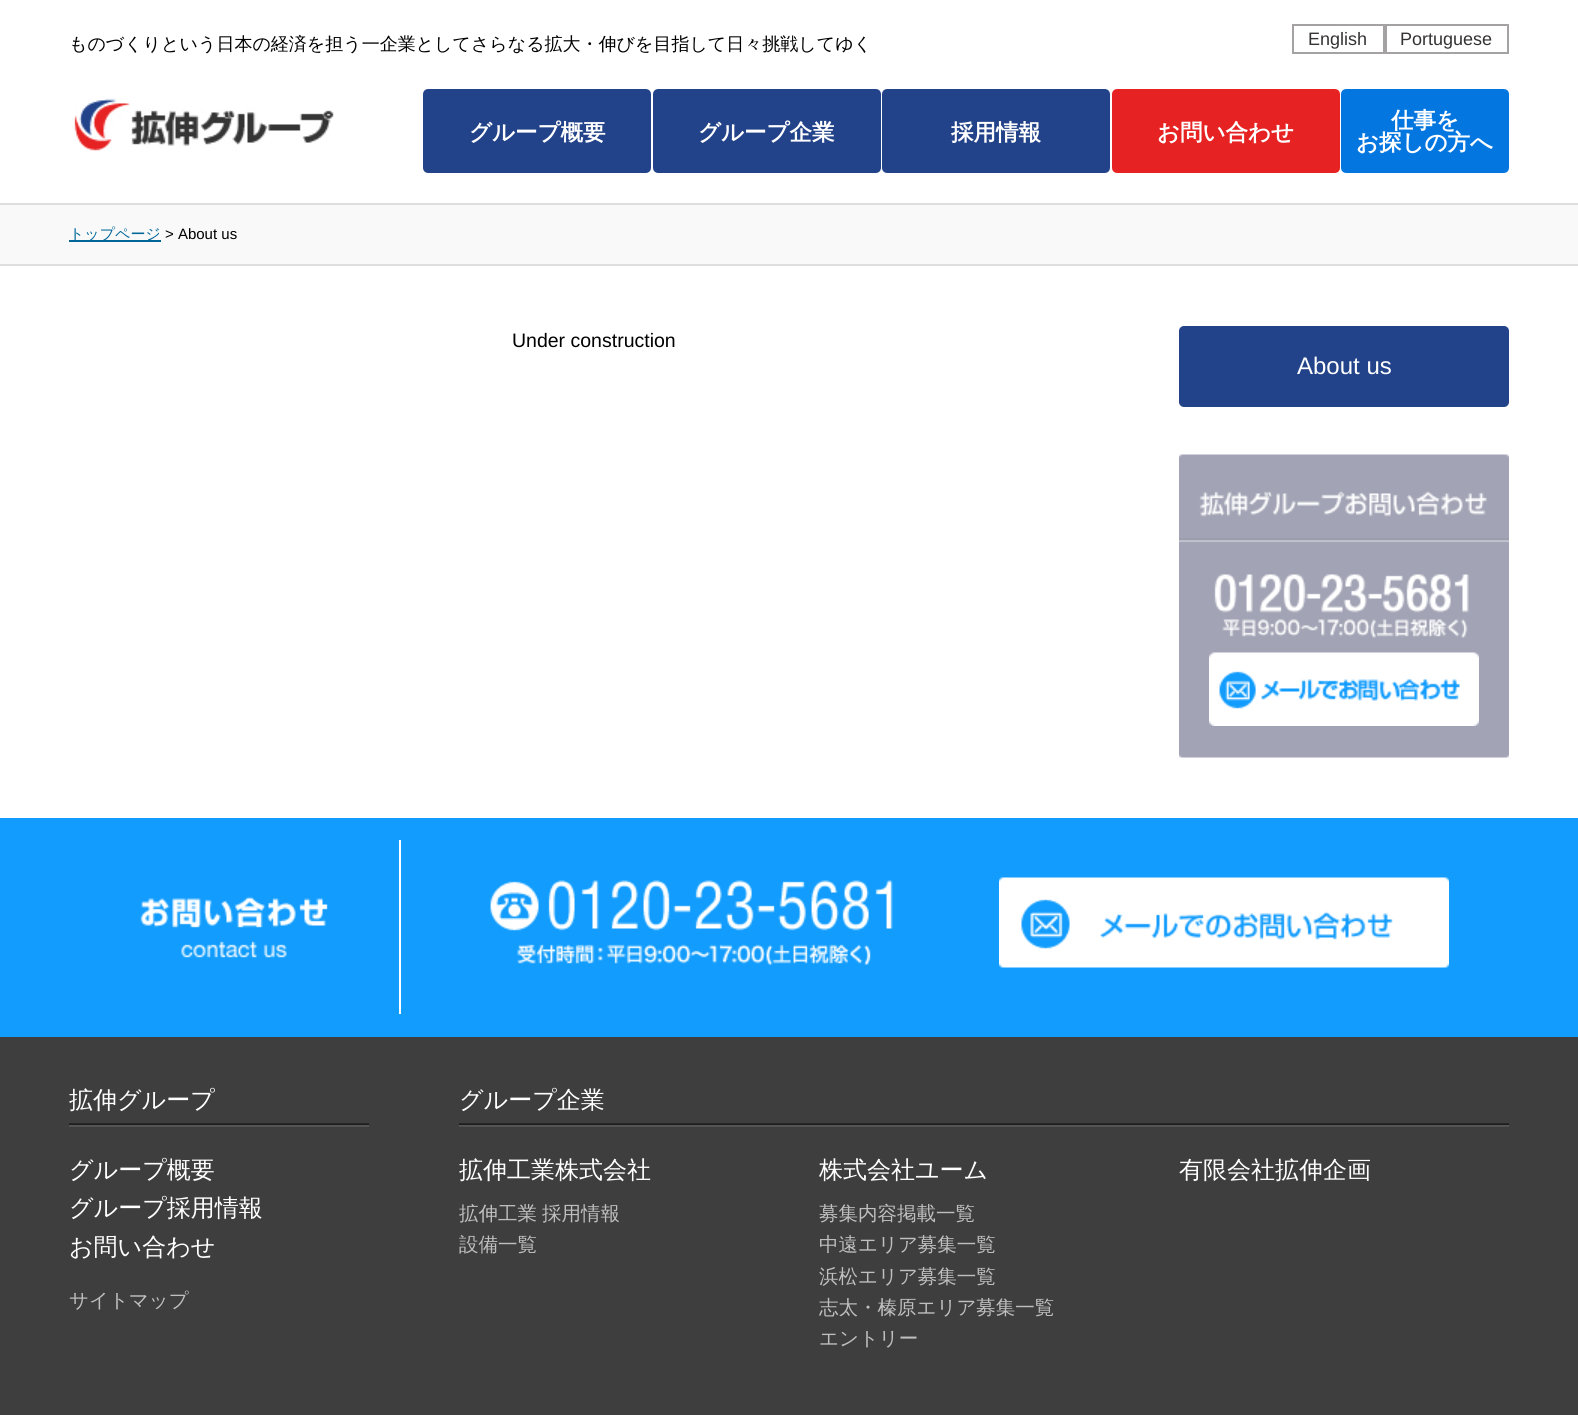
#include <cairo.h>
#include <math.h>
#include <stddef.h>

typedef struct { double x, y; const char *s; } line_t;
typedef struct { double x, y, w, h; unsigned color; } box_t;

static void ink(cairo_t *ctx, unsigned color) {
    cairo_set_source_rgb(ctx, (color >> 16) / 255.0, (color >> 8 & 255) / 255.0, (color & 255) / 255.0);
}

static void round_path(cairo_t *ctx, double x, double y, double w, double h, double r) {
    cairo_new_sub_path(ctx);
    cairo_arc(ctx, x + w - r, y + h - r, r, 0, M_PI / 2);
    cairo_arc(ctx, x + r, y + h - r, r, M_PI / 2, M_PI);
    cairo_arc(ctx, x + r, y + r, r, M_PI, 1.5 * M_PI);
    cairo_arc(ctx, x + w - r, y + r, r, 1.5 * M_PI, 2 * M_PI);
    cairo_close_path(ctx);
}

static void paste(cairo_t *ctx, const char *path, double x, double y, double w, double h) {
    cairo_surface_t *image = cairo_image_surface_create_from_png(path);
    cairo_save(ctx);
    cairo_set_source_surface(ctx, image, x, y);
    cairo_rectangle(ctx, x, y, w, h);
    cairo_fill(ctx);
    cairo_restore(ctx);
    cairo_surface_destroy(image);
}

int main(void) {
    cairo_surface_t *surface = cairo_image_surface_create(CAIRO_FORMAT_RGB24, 1578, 1415);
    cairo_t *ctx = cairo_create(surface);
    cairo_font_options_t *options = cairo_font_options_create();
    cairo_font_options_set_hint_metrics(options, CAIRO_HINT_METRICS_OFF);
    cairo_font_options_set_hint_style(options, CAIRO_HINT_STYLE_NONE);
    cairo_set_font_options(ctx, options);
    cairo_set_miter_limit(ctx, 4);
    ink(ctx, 0xFFFFFF);
    cairo_paint(ctx);
    cairo_select_font_face(ctx, "WenQuanYi Zen Hei Medium", CAIRO_FONT_SLANT_NORMAL, CAIRO_FONT_WEIGHT_NORMAL);
    cairo_set_font_size(ctx, 18);
    ink(ctx, 0x000000);
    cairo_move_to(ctx, 69, 50);
    cairo_show_text(ctx, "ものづくりという日本の経済を担う一企業としてさらなる拡大・伸びを目指して日々挑戦してゆく");
    cairo_rectangle(ctx, 1293, 25, 91, 28);
    ink(ctx, 0xA5A2A3);
    cairo_stroke(ctx);
    cairo_select_font_face(ctx, "Liberation Sans", CAIRO_FONT_SLANT_NORMAL, CAIRO_FONT_WEIGHT_NORMAL);
    ink(ctx, 0x333333);
    cairo_move_to(ctx, 1308, 45);
    cairo_show_text(ctx, "English");
    cairo_rectangle(ctx, 1386, 25, 122, 28);
    ink(ctx, 0xA5A2A3);
    cairo_stroke(ctx);
    ink(ctx, 0x333333);
    cairo_move_to(ctx, 1400, 45);
    cairo_show_text(ctx, "Portuguese");
    paste(ctx, "media/1.png", 74, 98, 260, 53);
    ink(ctx, 0x224389);
    round_path(ctx, 425.5, 91.5, 223, 79, 2.5);
    cairo_fill_preserve(ctx);
    cairo_set_line_width(ctx, 5);
    cairo_stroke(ctx);
    cairo_select_font_face(ctx, "WenQuanYi Zen Hei", CAIRO_FONT_SLANT_NORMAL, CAIRO_FONT_WEIGHT_BOLD);
    cairo_set_font_size(ctx, 22.5);
    ink(ctx, 0xFFFFFF);
    cairo_move_to(ctx, 469, 140);
    cairo_show_text(ctx, "グループ概要");
    ink(ctx, 0x224389);
    round_path(ctx, 655.5, 91.5, 223, 79, 2.5);
    cairo_fill_preserve(ctx);
    cairo_stroke(ctx);
    ink(ctx, 0xFFFFFF);
    cairo_move_to(ctx, 698, 140);
    cairo_show_text(ctx, "グループ企業");
    ink(ctx, 0x224389);
    round_path(ctx, 884.5, 91.5, 223, 79, 2.5);
    cairo_fill_preserve(ctx);
    cairo_stroke(ctx);
    ink(ctx, 0xFFFFFF);
    cairo_move_to(ctx, 951, 140);
    cairo_show_text(ctx, "採用情報");
    ink(ctx, 0xE62222);
    round_path(ctx, 1114.5, 91.5, 223, 79, 2.5);
    cairo_fill_preserve(ctx);
    cairo_stroke(ctx);
    ink(ctx, 0xFFFFFF);
    cairo_move_to(ctx, 1157, 140);
    cairo_show_text(ctx, "お問い合わせ");
    ink(ctx, 0x0476E0);
    round_path(ctx, 1343.5, 91.5, 163, 79, 2.5);
    cairo_fill_preserve(ctx);
    cairo_stroke(ctx);
    ink(ctx, 0xFFFFFF);
    cairo_move_to(ctx, 1391, 128);
    cairo_show_text(ctx, "仕事を");
    cairo_move_to(ctx, 1356, 150);
    cairo_show_text(ctx, "お探しの方へ");
    {
        static const box_t items[] = {
            {0, 205, 1578, 59, 0xF9F9F9},
            {0, 203, 1578, 2, 0xDEDEDE},
            {0, 264, 1578, 2, 0xDEDEDE},
            {69, 240, 92, 2, 0x006699},
        };
        for (size_t i = 0; i < sizeof items / sizeof *items; i++) {
            ink(ctx, items[i].color);
            cairo_rectangle(ctx, items[i].x, items[i].y, items[i].w, items[i].h);
            cairo_fill(ctx);
        }
    }
    cairo_select_font_face(ctx, "WenQuanYi Zen Hei Medium", CAIRO_FONT_SLANT_NORMAL, CAIRO_FONT_WEIGHT_NORMAL);
    cairo_set_font_size(ctx, 15);
    cairo_move_to(ctx, 69, 239);
    cairo_show_text(ctx, "トップページ");
    cairo_select_font_face(ctx, "Liberation Sans", CAIRO_FONT_SLANT_NORMAL, CAIRO_FONT_WEIGHT_NORMAL);
    ink(ctx, 0x000000);
    cairo_move_to(ctx, 165, 239);
    cairo_show_text(ctx, "> About us");
    cairo_set_font_size(ctx, 19.5);
    cairo_move_to(ctx, 512, 347);
    cairo_show_text(ctx, "Under construction");
    ink(ctx, 0x224389);
    round_path(ctx, 1179, 326, 330, 81, 5);
    cairo_fill(ctx);
    cairo_set_font_size(ctx, 24);
    ink(ctx, 0xFFFFFF);
    cairo_move_to(ctx, 1297, 374);
    cairo_show_text(ctx, "About us");
    paste(ctx, "media/2.png", 1179, 454, 330, 88);
    paste(ctx, "media/3.png", 1179, 541, 330, 217);
    paste(ctx, "media/4.png", 1214, 574, 255, 64);
    paste(ctx, "media/5.png", 1209, 652, 270, 74);
    ink(ctx, 0x119CFE);
    cairo_rectangle(ctx, 0, 818, 1578, 219);
    cairo_fill(ctx);
    ink(ctx, 0xFFFFFF);
    cairo_rectangle(ctx, 399, 840, 2, 174);
    cairo_fill(ctx);
    paste(ctx, "media/6.png", 140, 896, 188, 62);
    paste(ctx, "media/7.png", 490, 880, 403, 85);
    paste(ctx, "media/8.png", 999, 877, 450, 91);
    ink(ctx, 0x3E3E3E);
    cairo_rectangle(ctx, 0, 1037, 1578, 378);
    cairo_fill(ctx);
    paste(ctx, "media/9.png", 69, 1123, 300, 4);
    cairo_select_font_face(ctx, "WenQuanYi Zen Hei Medium", CAIRO_FONT_SLANT_NORMAL, CAIRO_FONT_WEIGHT_NORMAL);
    ink(ctx, 0xFFFFFF);
    {
        static const line_t items[] = {
            {69, 1108, "拡伸グループ"},
            {69, 1178, "グループ概要"},
            {69, 1216, "グループ採用情報"},
            {69, 1255, "お問い合わせ"},
        };
        for (size_t i = 0; i < sizeof items / sizeof *items; i++) {
            cairo_move_to(ctx, items[i].x, items[i].y);
            cairo_show_text(ctx, items[i].s);
        }
    }
    cairo_set_font_size(ctx, 19.5);
    ink(ctx, 0xBFBFBF);
    cairo_move_to(ctx, 69, 1307);
    cairo_show_text(ctx, "サイトマップ");
    paste(ctx, "media/10.png", 459, 1123, 1050, 4);
    cairo_set_font_size(ctx, 24);
    ink(ctx, 0xFFFFFF);
    cairo_move_to(ctx, 459, 1108);
    cairo_show_text(ctx, "グループ企業");
    cairo_move_to(ctx, 459, 1178);
    cairo_show_text(ctx, "拡伸工業株式会社");
    cairo_set_font_size(ctx, 19.5);
    ink(ctx, 0xBFBFBF);
    {
        static const line_t items[] = {
            {459, 1220, "拡伸工業"},
            {542, 1220, "採用情報"},
            {459, 1251, "設備一覧"},
        };
        for (size_t i = 0; i < sizeof items / sizeof *items; i++) {
            cairo_move_to(ctx, items[i].x, items[i].y);
            cairo_show_text(ctx, items[i].s);
        }
    }
    cairo_set_font_size(ctx, 24);
    ink(ctx, 0xFFFFFF);
    cairo_move_to(ctx, 819, 1178);
    cairo_show_text(ctx, "株式会社ユーム");
    cairo_set_font_size(ctx, 19.5);
    ink(ctx, 0xBFBFBF);
    {
        static const line_t items[] = {
            {819, 1220, "募集内容掲載一覧"},
            {819, 1251, "中遠エリア募集一覧"},
            {819, 1283, "浜松エリア募集一覧"},
            {819, 1314, "志太・榛原エリア募集一覧"},
            {819, 1345, "エントリー"},
        };
        for (size_t i = 0; i < sizeof items / sizeof *items; i++) {
            cairo_move_to(ctx, items[i].x, items[i].y);
            cairo_show_text(ctx, items[i].s);
        }
    }
    cairo_set_font_size(ctx, 24);
    ink(ctx, 0xFFFFFF);
    cairo_move_to(ctx, 1179, 1178);
    cairo_show_text(ctx, "有限会社拡伸企画");
    cairo_surface_write_to_png(surface, "image.png");
    cairo_font_options_destroy(options);
    cairo_destroy(ctx);
    cairo_surface_destroy(surface);
    return 0;
}
